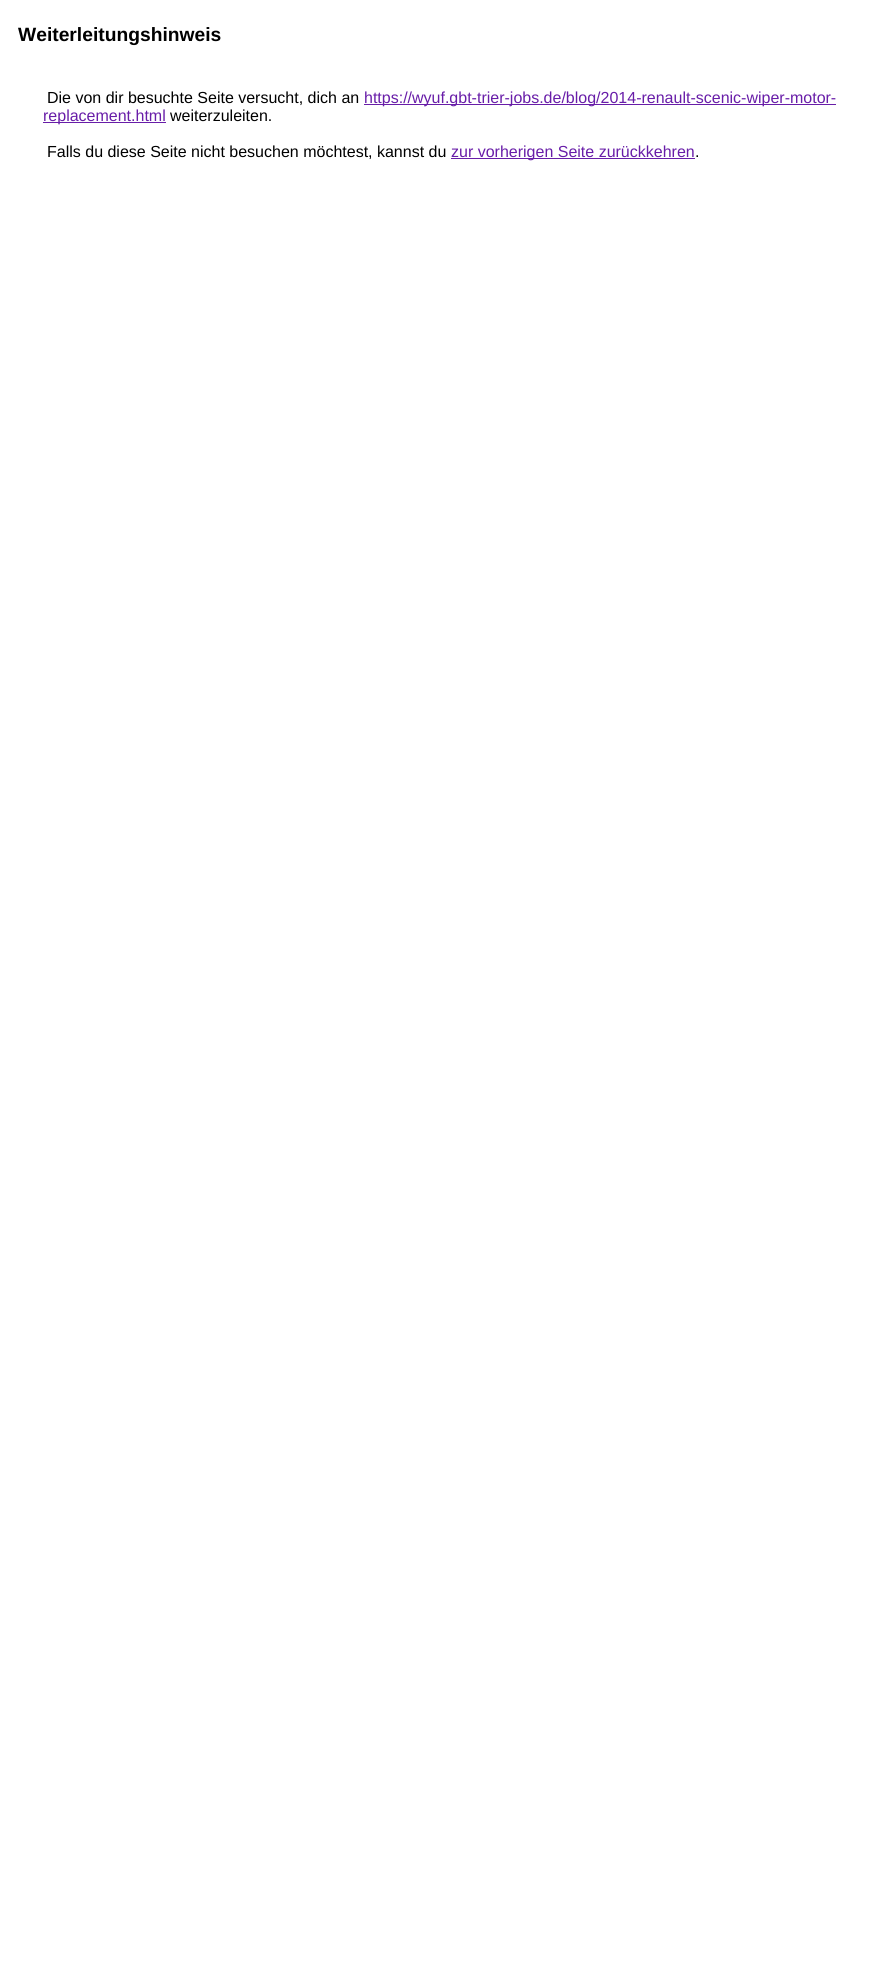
#include <cairo.h>
#include <math.h>
#include <stddef.h>


static void ink(cairo_t *ctx, unsigned color) {
    cairo_set_source_rgb(ctx, (color >> 16) / 255.0, (color >> 8 & 255) / 255.0, (color & 255) / 255.0);
}

int main(void) {
    cairo_surface_t *surface = cairo_image_surface_create(CAIRO_FORMAT_RGB24, 876, 1988);
    cairo_t *ctx = cairo_create(surface);
    cairo_font_options_t *options = cairo_font_options_create();
    cairo_font_options_set_hint_metrics(options, CAIRO_HINT_METRICS_OFF);
    cairo_font_options_set_hint_style(options, CAIRO_HINT_STYLE_NONE);
    cairo_set_font_options(ctx, options);
    cairo_set_miter_limit(ctx, 4);
    ink(ctx, 0xFFFFFF);
    cairo_paint(ctx);
    cairo_select_font_face(ctx, "Liberation Sans", CAIRO_FONT_SLANT_NORMAL, CAIRO_FONT_WEIGHT_BOLD);
    cairo_set_font_size(ctx, 19.25);
    ink(ctx, 0x000000);
    cairo_move_to(ctx, 18, 41);
    cairo_show_text(ctx, "Weiterleitungshinweis");
    cairo_select_font_face(ctx, "Liberation Sans", CAIRO_FONT_SLANT_NORMAL, CAIRO_FONT_WEIGHT_NORMAL);
    cairo_set_font_size(ctx, 16);
    cairo_move_to(ctx, 47, 103);
    cairo_show_text(ctx, "Die von dir besuchte Seite versucht, dich an");
    ink(ctx, 0x681DA8);
    cairo_rectangle(ctx, 364, 104, 472, 1);
    cairo_fill(ctx);
    cairo_move_to(ctx, 364, 103);
    cairo_show_text(ctx, "https://wyuf.gbt-trier-jobs.de/blog/2014-renault-scenic-wiper-motor-");
    cairo_rectangle(ctx, 43, 122, 123, 1);
    cairo_fill(ctx);
    cairo_move_to(ctx, 43, 121);
    cairo_show_text(ctx, "replacement.html");
    ink(ctx, 0x000000);
    cairo_move_to(ctx, 170, 121);
    cairo_show_text(ctx, "weiterzuleiten.");
    cairo_move_to(ctx, 47, 157);
    cairo_show_text(ctx, "Falls du diese Seite nicht besuchen möchtest, kannst du");
    ink(ctx, 0x681DA8);
    cairo_rectangle(ctx, 451, 158, 244, 1);
    cairo_fill(ctx);
    cairo_move_to(ctx, 451, 157);
    cairo_show_text(ctx, "zur vorherigen Seite zurückkehren");
    ink(ctx, 0x000000);
    cairo_move_to(ctx, 695, 157);
    cairo_show_text(ctx, ".");
    cairo_surface_write_to_png(surface, "image.png");
    cairo_font_options_destroy(options);
    cairo_destroy(ctx);
    cairo_surface_destroy(surface);
    return 0;
}
